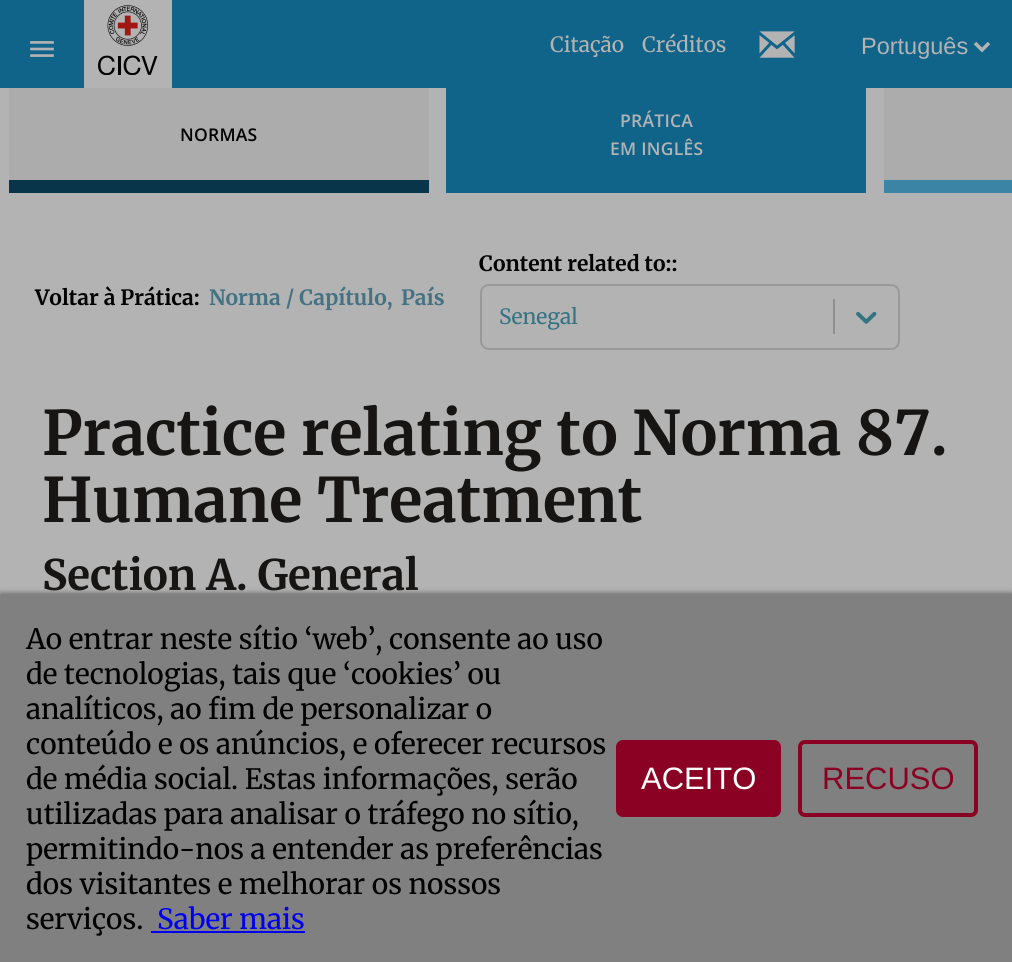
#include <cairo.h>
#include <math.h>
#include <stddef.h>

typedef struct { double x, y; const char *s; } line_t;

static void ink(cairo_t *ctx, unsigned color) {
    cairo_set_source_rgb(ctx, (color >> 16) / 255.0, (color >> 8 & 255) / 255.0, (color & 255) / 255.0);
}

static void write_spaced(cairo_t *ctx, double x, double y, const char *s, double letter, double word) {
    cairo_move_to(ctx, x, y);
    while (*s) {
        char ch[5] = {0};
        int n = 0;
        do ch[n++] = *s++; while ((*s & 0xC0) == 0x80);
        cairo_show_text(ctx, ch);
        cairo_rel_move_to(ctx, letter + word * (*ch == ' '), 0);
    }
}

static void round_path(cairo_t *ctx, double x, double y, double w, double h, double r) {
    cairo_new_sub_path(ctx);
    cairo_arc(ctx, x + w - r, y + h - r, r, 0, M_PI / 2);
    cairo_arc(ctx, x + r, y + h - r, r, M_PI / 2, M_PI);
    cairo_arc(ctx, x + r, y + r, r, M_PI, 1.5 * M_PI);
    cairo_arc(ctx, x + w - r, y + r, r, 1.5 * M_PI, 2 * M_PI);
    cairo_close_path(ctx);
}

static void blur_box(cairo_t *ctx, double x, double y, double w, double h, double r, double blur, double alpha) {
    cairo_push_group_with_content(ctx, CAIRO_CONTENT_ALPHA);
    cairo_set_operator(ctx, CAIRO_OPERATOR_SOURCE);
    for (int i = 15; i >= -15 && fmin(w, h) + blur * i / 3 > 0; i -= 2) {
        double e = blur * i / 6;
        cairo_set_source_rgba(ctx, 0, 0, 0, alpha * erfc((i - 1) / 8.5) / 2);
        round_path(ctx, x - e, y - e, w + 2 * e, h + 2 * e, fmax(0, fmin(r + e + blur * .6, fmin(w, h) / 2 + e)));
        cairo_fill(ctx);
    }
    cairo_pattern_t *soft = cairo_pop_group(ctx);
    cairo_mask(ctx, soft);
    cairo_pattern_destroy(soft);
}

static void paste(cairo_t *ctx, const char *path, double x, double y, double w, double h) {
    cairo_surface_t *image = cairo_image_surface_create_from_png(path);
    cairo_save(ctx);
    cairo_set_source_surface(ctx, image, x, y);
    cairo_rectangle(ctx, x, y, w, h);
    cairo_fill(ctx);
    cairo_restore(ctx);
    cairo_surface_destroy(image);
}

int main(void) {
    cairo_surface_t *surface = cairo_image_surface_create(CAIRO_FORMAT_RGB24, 1012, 962);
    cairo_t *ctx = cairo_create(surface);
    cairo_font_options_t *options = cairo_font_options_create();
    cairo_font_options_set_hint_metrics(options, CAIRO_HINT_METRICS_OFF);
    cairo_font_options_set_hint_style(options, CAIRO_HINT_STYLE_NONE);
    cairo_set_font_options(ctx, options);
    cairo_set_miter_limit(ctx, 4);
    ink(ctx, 0xB3B3B3);
    cairo_paint(ctx);
    ink(ctx, 0x106389);
    cairo_rectangle(ctx, 0, 0, 1012, 88);
    cairo_fill(ctx);
    paste(ctx, "media/1.png", 30, 41, 24, 16);
    ink(ctx, 0xB3B3B3);
    cairo_rectangle(ctx, 84, 0, 88, 88);
    cairo_fill(ctx);
    paste(ctx, "media/2.png", 98, 5, 60, 70);
    cairo_select_font_face(ctx, "Merriweather", CAIRO_FONT_SLANT_NORMAL, CAIRO_FONT_WEIGHT_NORMAL);
    cairo_set_font_size(ctx, 21);
    cairo_move_to(ctx, 550, 52);
    cairo_show_text(ctx, "Citação");
    cairo_move_to(ctx, 642, 52);
    cairo_show_text(ctx, "Créditos");
    paste(ctx, "media/3.png", 759, 31, 36, 27);
    cairo_new_path(ctx);
    cairo_move_to(ctx, 975, 43);
    cairo_line_to(ctx, 982, 50);
    cairo_line_to(ctx, 989, 43);
    cairo_set_line_width(ctx, 3.5);
    cairo_stroke(ctx);
    cairo_select_font_face(ctx, "Liberation Sans", CAIRO_FONT_SLANT_NORMAL, CAIRO_FONT_WEIGHT_NORMAL);
    cairo_set_font_size(ctx, 23.5);
    cairo_move_to(ctx, 861, 54);
    cairo_show_text(ctx, "Português");
    ink(ctx, 0xACACAC);
    cairo_rectangle(ctx, 9, 88, 420, 92);
    cairo_fill(ctx);
    ink(ctx, 0x083549);
    cairo_rectangle(ctx, 9, 180, 420, 13);
    cairo_fill(ctx);
    cairo_select_font_face(ctx, "Open Sans SemiBold", CAIRO_FONT_SLANT_NORMAL, CAIRO_FONT_WEIGHT_NORMAL);
    cairo_set_font_size(ctx, 17.5);
    ink(ctx, 0x000000);
    write_spaced(ctx, 180, 141, "NORMAS", 0.25, 0);
    ink(ctx, 0x106389);
    cairo_rectangle(ctx, 446, 88, 420, 105);
    cairo_fill(ctx);
    ink(ctx, 0xB3B3B3);
    write_spaced(ctx, 620, 127, "PRÁTICA", 0.25, 0);
    write_spaced(ctx, 610, 155, "EM INGLÊS", 0.25, 0);
    ink(ctx, 0xACACAC);
    cairo_rectangle(ctx, 884, 88, 128, 92);
    cairo_fill(ctx);
    ink(ctx, 0x3B84A5);
    cairo_rectangle(ctx, 884, 180, 128, 13);
    cairo_fill(ctx);
    cairo_select_font_face(ctx, "Merriweather", CAIRO_FONT_SLANT_NORMAL, CAIRO_FONT_WEIGHT_BOLD);
    cairo_set_font_size(ctx, 21);
    ink(ctx, 0x000000);
    cairo_move_to(ctx, 35, 305);
    cairo_show_text(ctx, "Voltar à Prática:");
    ink(ctx, 0x457283);
    cairo_move_to(ctx, 209, 305);
    cairo_show_text(ctx, "Norma / Capítulo,");
    cairo_move_to(ctx, 401, 305);
    cairo_show_text(ctx, "País");
    ink(ctx, 0x000000);
    cairo_move_to(ctx, 479, 271);
    cairo_show_text(ctx, "Content related to::");
    round_path(ctx, 481, 285, 418, 64, 8);
    ink(ctx, 0x999999);
    cairo_set_line_width(ctx, 2);
    cairo_stroke(ctx);
    cairo_select_font_face(ctx, "Merriweather", CAIRO_FONT_SLANT_NORMAL, CAIRO_FONT_WEIGHT_NORMAL);
    ink(ctx, 0x347382);
    cairo_move_to(ctx, 499, 324);
    cairo_show_text(ctx, "Senegal");
    ink(ctx, 0x8F8F8F);
    cairo_rectangle(ctx, 833, 299, 2, 35);
    cairo_fill(ctx);
    paste(ctx, "media/4.png", 856, 311, 21, 13);
    cairo_select_font_face(ctx, "Merriweather", CAIRO_FONT_SLANT_NORMAL, CAIRO_FONT_WEIGHT_BOLD);
    cairo_set_font_size(ctx, 61.25);
    ink(ctx, 0x161514);
    cairo_move_to(ctx, 42, 455);
    cairo_show_text(ctx, "Practice relating to Norma 87.");
    cairo_move_to(ctx, 42, 522);
    cairo_show_text(ctx, "Humane Treatment");
    cairo_set_font_size(ctx, 42);
    cairo_move_to(ctx, 42, 590);
    cairo_show_text(ctx, "Section A. General");
    ink(ctx, 0x6B6B6B);
    blur_box(ctx, 0, 593, 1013, 368, 0, 2.5, 1);
    ink(ctx, 0x808080);
    cairo_rectangle(ctx, 0, 595, 1012, 367);
    cairo_fill(ctx);
    cairo_select_font_face(ctx, "Merriweather", CAIRO_FONT_SLANT_NORMAL, CAIRO_FONT_WEIGHT_NORMAL);
    cairo_set_font_size(ctx, 28);
    ink(ctx, 0x000000);
    {
        static const line_t items[] = {
            {26, 649, "Ao entrar neste sítio ‘web’, consente ao uso"},
            {26, 684, "de tecnologias, tais que ‘cookies’ ou"},
            {26, 719, "analíticos, ao fim de personalizar o"},
            {26, 754, "conteúdo e os anúncios, e oferecer recursos"},
            {26, 789, "de média social. Estas informações, serão"},
            {26, 824, "utilizadas para analisar o tráfego no sítio,"},
            {26, 859, "permitindo-nos a entender as preferências"},
            {26, 894, "dos visitantes e melhorar os nossos"},
            {26, 929, "serviços."},
        };
        for (size_t i = 0; i < sizeof items / sizeof *items; i++) {
            cairo_move_to(ctx, items[i].x, items[i].y);
            cairo_show_text(ctx, items[i].s);
        }
    }
    ink(ctx, 0x0000EE);
    cairo_move_to(ctx, 157, 929);
    cairo_show_text(ctx, "Saber mais");
    cairo_rectangle(ctx, 151, 931, 154, 2);
    cairo_fill(ctx);
    ink(ctx, 0x8A0124);
    round_path(ctx, 618, 742, 161, 73, 5);
    cairo_fill_preserve(ctx);
    cairo_set_line_width(ctx, 4);
    cairo_stroke(ctx);
    cairo_select_font_face(ctx, "Liberation Sans", CAIRO_FONT_SLANT_NORMAL, CAIRO_FONT_WEIGHT_NORMAL);
    cairo_set_font_size(ctx, 31);
    ink(ctx, 0xFFFFFF);
    cairo_move_to(ctx, 641, 789);
    cairo_show_text(ctx, "ACEITO");
    round_path(ctx, 800, 742, 176, 73, 5);
    ink(ctx, 0x8A0124);
    cairo_stroke(ctx);
    cairo_move_to(ctx, 822, 789);
    cairo_show_text(ctx, "RECUSO");
    cairo_surface_write_to_png(surface, "image.png");
    cairo_font_options_destroy(options);
    cairo_destroy(ctx);
    cairo_surface_destroy(surface);
    return 0;
}
